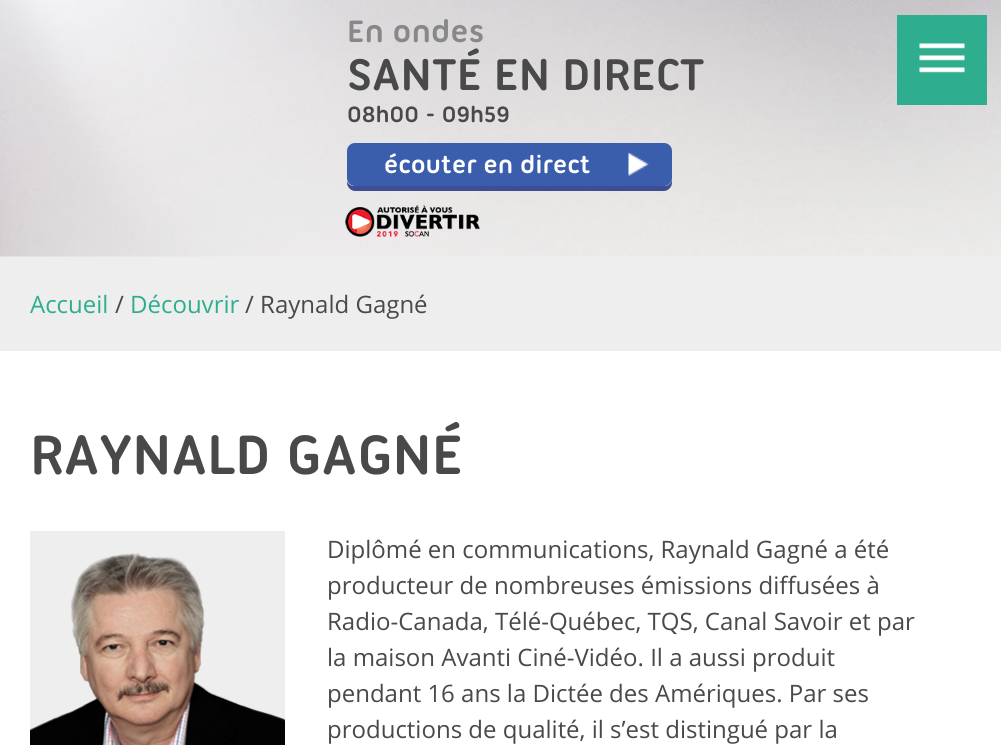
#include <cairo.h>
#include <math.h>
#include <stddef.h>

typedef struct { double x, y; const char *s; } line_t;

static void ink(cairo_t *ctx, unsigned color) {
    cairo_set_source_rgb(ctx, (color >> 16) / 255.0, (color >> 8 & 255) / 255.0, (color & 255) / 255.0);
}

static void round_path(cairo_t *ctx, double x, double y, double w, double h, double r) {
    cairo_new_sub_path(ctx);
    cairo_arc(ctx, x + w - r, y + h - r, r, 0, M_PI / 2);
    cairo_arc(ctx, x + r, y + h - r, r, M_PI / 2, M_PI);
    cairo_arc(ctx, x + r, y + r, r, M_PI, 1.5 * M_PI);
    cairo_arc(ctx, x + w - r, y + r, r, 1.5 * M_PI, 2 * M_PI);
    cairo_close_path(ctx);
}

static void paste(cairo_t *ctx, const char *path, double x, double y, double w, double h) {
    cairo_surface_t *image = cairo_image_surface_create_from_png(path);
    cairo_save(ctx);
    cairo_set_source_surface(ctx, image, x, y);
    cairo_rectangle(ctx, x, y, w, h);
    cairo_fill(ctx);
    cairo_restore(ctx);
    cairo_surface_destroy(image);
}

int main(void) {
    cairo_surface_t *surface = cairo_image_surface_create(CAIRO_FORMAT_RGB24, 1001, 745);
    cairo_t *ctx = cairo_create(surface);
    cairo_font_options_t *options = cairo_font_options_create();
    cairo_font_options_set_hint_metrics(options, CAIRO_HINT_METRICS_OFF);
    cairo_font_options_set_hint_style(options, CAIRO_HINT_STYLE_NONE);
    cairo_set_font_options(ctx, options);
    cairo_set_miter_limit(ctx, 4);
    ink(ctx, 0xFFFFFF);
    cairo_paint(ctx);
    ink(ctx, 0xEEEEEE);
    cairo_rectangle(ctx, 0, 256, 1001, 95);
    cairo_fill(ctx);
    paste(ctx, "media/1.png", 0, 0, 1001, 257);
    cairo_select_font_face(ctx, "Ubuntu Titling", CAIRO_FONT_SLANT_NORMAL, CAIRO_FONT_WEIGHT_BOLD);
    cairo_set_font_size(ctx, 33.5);
    ink(ctx, 0x888888);
    cairo_move_to(ctx, 347, 42);
    cairo_show_text(ctx, "En ondes");
    cairo_set_font_size(ctx, 48);
    ink(ctx, 0x494949);
    cairo_move_to(ctx, 347, 90);
    cairo_show_text(ctx, "SANTÉ EN DIRECT");
    cairo_set_font_size(ctx, 24);
    cairo_move_to(ctx, 347, 122);
    cairo_show_text(ctx, "08h00 - 09h59");
    ink(ctx, 0x3F4E92);
    cairo_new_path(ctx);
    cairo_move_to(ctx, 347, 181);
    cairo_line_to(ctx, 347, 183);
    cairo_curve_to(ctx, 347, 187, 351, 191, 355, 191);
    cairo_line_to(ctx, 664, 191);
    cairo_curve_to(ctx, 668, 191, 672, 187, 672, 183);
    cairo_line_to(ctx, 672, 178);
    cairo_curve_to(ctx, 672, 183, 669, 186, 664, 186);
    cairo_line_to(ctx, 354, 186);
    cairo_curve_to(ctx, 351, 186, 348, 184, 347, 181);
    cairo_close_path(ctx);
    cairo_fill(ctx);
    ink(ctx, 0x3A5DAC);
    round_path(ctx, 347, 143, 325, 43, 8);
    cairo_fill(ctx);
    cairo_set_font_size(ctx, 26.5);
    ink(ctx, 0xFFFFFF);
    cairo_move_to(ctx, 384, 173);
    cairo_show_text(ctx, "écouter en direct");
    paste(ctx, "media/2.png", 628, 153, 21, 23);
    ink(ctx, 0x2EAE8E);
    cairo_rectangle(ctx, 897, 15, 90, 90);
    cairo_fill(ctx);
    paste(ctx, "media/3.png", 919, 43, 46, 30);
    paste(ctx, "media/4.png", 345, 205, 135, 32);
    cairo_select_font_face(ctx, "Open Sans", CAIRO_FONT_SLANT_NORMAL, CAIRO_FONT_WEIGHT_NORMAL);
    cairo_set_font_size(ctx, 24);
    cairo_move_to(ctx, 30, 313);
    cairo_show_text(ctx, "Accueil");
    ink(ctx, 0x494949);
    cairo_move_to(ctx, 115, 313);
    cairo_show_text(ctx, "/");
    ink(ctx, 0x2EAE8E);
    cairo_move_to(ctx, 130, 313);
    cairo_show_text(ctx, "Découvrir");
    ink(ctx, 0x494949);
    cairo_move_to(ctx, 245, 313);
    cairo_show_text(ctx, "/ Raynald Gagné");
    cairo_select_font_face(ctx, "Ubuntu Titling", CAIRO_FONT_SLANT_NORMAL, CAIRO_FONT_WEIGHT_BOLD);
    cairo_set_font_size(ctx, 60);
    cairo_move_to(ctx, 30, 474);
    cairo_show_text(ctx, "RAYNALD GAGNÉ");
    ink(ctx, 0xEEEEEE);
    cairo_rectangle(ctx, 30, 531, 255, 201);
    cairo_fill(ctx);
    paste(ctx, "media/5.png", 30, 552, 255, 193);
    cairo_select_font_face(ctx, "Open Sans", CAIRO_FONT_SLANT_NORMAL, CAIRO_FONT_WEIGHT_NORMAL);
    cairo_set_font_size(ctx, 24);
    ink(ctx, 0x494949);
    {
        static const line_t items[] = {
            {327, 558, "Diplômé en communications, Raynald Gagné a été"},
            {327, 594, "producteur de nombreuses émissions diffusées à"},
            {327, 630, "Radio-Canada, Télé-Québec, TQS, Canal Savoir et par"},
            {327, 666, "la maison Avanti Ciné-Vidéo. Il a aussi produit"},
            {327, 702, "pendant 16 ans la Dictée des Amériques. Par ses"},
            {327, 738, "productions de qualité, il s’est distingué par la"},
        };
        for (size_t i = 0; i < sizeof items / sizeof *items; i++) {
            cairo_move_to(ctx, items[i].x, items[i].y);
            cairo_show_text(ctx, items[i].s);
        }
    }
    cairo_surface_write_to_png(surface, "image.png");
    cairo_font_options_destroy(options);
    cairo_destroy(ctx);
    cairo_surface_destroy(surface);
    return 0;
}
